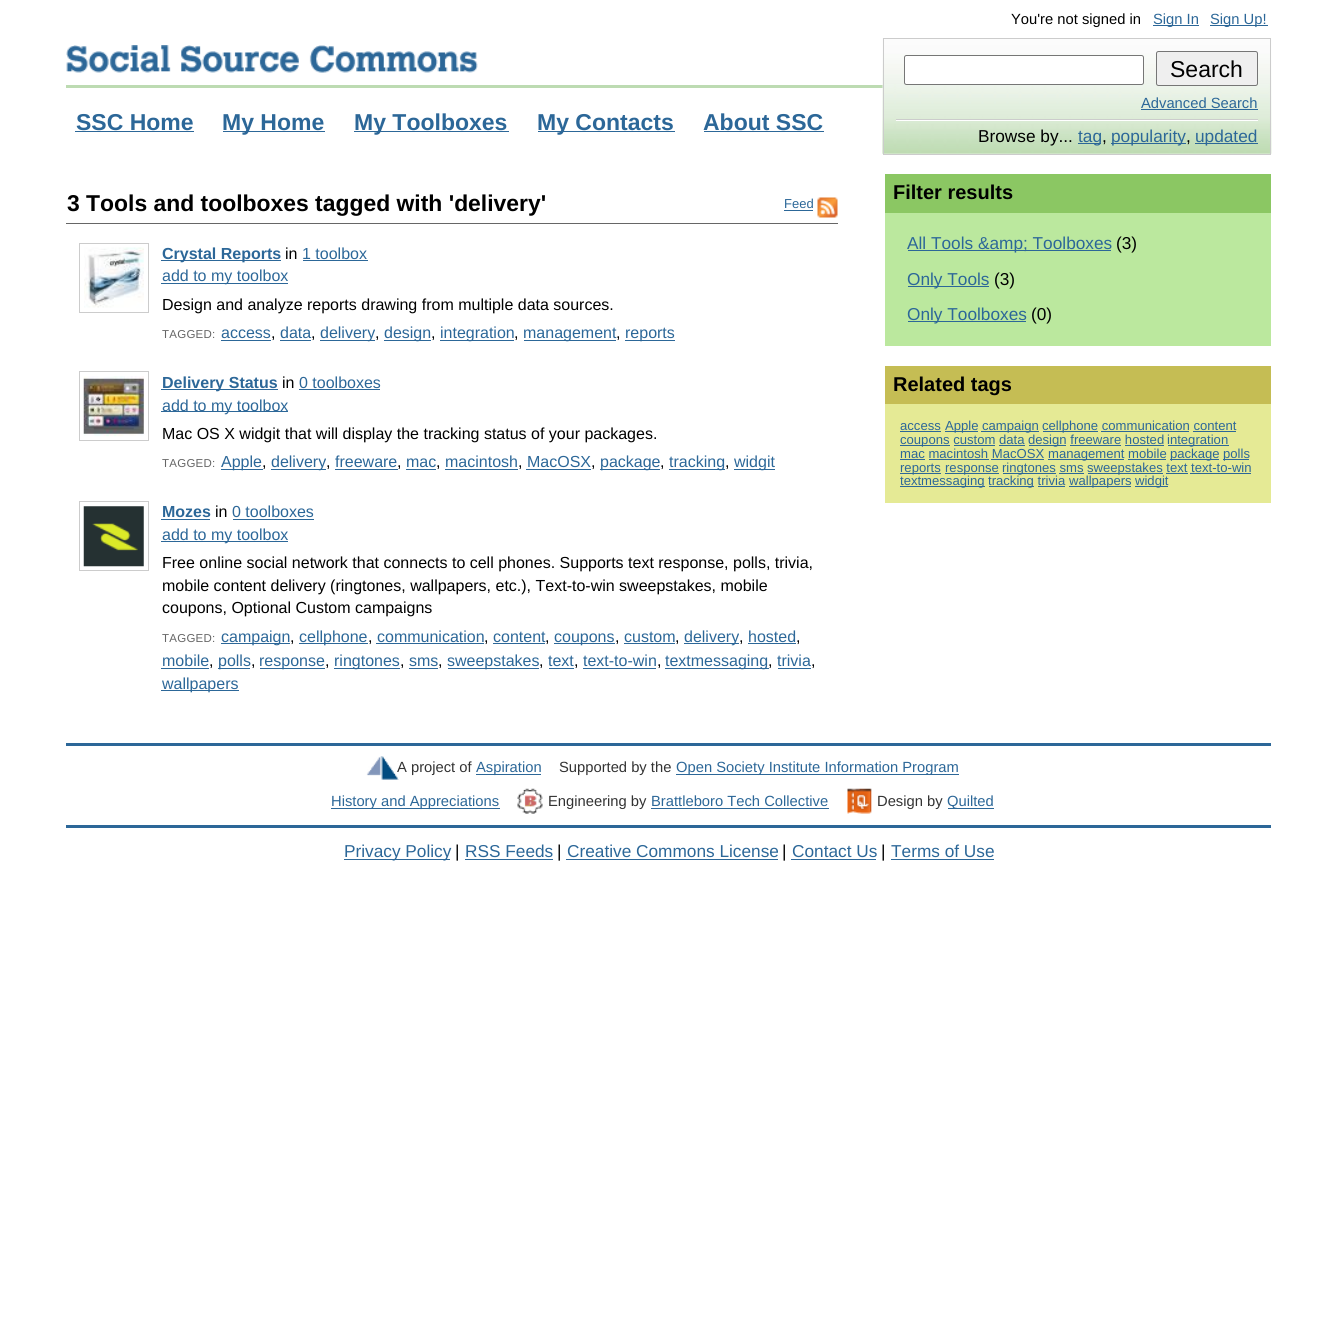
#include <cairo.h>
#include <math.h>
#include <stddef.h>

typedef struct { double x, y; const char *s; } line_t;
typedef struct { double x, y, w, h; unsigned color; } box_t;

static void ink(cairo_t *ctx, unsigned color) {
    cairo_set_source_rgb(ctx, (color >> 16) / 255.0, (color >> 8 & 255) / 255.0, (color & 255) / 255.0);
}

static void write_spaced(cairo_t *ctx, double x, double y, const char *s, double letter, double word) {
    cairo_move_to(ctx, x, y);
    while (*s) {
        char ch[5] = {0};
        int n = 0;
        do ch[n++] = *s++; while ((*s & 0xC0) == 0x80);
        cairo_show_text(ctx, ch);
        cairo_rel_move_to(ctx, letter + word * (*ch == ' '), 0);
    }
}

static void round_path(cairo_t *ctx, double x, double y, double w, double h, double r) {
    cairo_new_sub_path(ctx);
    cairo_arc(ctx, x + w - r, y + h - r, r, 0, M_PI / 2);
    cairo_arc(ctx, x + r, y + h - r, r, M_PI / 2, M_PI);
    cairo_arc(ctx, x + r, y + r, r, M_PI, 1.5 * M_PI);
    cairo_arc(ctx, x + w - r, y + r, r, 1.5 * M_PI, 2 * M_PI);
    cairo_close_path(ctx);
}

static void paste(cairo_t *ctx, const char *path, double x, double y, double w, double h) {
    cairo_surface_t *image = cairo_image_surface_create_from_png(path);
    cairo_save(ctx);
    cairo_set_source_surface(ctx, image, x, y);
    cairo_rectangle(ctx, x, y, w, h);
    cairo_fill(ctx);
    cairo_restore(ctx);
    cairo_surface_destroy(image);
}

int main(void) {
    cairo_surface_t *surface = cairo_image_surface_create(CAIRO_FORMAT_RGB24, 1337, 1318);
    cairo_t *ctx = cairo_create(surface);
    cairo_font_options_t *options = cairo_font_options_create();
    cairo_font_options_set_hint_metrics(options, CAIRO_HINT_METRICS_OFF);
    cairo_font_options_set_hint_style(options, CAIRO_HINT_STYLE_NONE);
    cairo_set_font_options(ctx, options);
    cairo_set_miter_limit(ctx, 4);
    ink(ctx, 0xFFFFFF);
    cairo_paint(ctx);
    cairo_select_font_face(ctx, "Liberation Sans", CAIRO_FONT_SLANT_NORMAL, CAIRO_FONT_WEIGHT_NORMAL);
    cairo_set_font_size(ctx, 14.75);
    ink(ctx, 0x000000);
    cairo_move_to(ctx, 1011, 24);
    cairo_show_text(ctx, "You're not signed in");
    ink(ctx, 0x2C6798);
    cairo_rectangle(ctx, 1153, 25, 46, 1);
    cairo_fill(ctx);
    cairo_move_to(ctx, 1153, 24);
    cairo_show_text(ctx, "Sign In");
    cairo_rectangle(ctx, 1210, 25, 58, 1);
    cairo_fill(ctx);
    cairo_move_to(ctx, 1210, 24);
    cairo_show_text(ctx, "Sign Up!");
    ink(ctx, 0xBDDBB2);
    cairo_rectangle(ctx, 66, 85, 817, 3);
    cairo_fill(ctx);
    paste(ctx, "media/1.png", 66, 45, 412, 28);
    paste(ctx, "media/2.png", 882, 38, 390, 116);
    cairo_rectangle(ctx, 883.5, 38.5, 387, 116);
    ink(ctx, 0xCCCCCC);
    cairo_set_line_width(ctx, 1);
    cairo_stroke(ctx);
    ink(ctx, 0xFFFFFF);
    round_path(ctx, 904.5, 55.5, 239, 29, 2);
    cairo_fill_preserve(ctx);
    ink(ctx, 0x767676);
    cairo_stroke(ctx);
    ink(ctx, 0xEFEFEF);
    round_path(ctx, 1156.5, 51.5, 101, 34, 2);
    cairo_fill_preserve(ctx);
    ink(ctx, 0x767676);
    cairo_stroke(ctx);
    cairo_set_font_size(ctx, 23);
    ink(ctx, 0x000000);
    cairo_move_to(ctx, 1170, 77);
    cairo_show_text(ctx, "Search");
    ink(ctx, 0xCCCCCC);
    cairo_rectangle(ctx, 896, 119, 362, 1);
    cairo_fill(ctx);
    cairo_set_font_size(ctx, 14.75);
    ink(ctx, 0x2C6798);
    cairo_move_to(ctx, 1141, 108);
    cairo_show_text(ctx, "Advanced Search");
    cairo_rectangle(ctx, 1141, 109, 117, 1);
    cairo_fill(ctx);
    ink(ctx, 0xFFFFFF);
    cairo_rectangle(ctx, 896, 120, 362, 1);
    cairo_fill(ctx);
    cairo_set_font_size(ctx, 17.25);
    ink(ctx, 0x000000);
    cairo_move_to(ctx, 978, 142);
    cairo_show_text(ctx, "Browse by...");
    ink(ctx, 0x2C6798);
    cairo_rectangle(ctx, 1078, 143, 23, 1);
    cairo_fill(ctx);
    cairo_move_to(ctx, 1078, 142);
    cairo_show_text(ctx, "tag");
    ink(ctx, 0x000000);
    cairo_move_to(ctx, 1102, 142);
    cairo_show_text(ctx, ",");
    ink(ctx, 0x2C6798);
    cairo_rectangle(ctx, 1111, 143, 75, 1);
    cairo_fill(ctx);
    cairo_move_to(ctx, 1111, 142);
    cairo_show_text(ctx, "popularity");
    ink(ctx, 0x000000);
    cairo_move_to(ctx, 1186, 142);
    cairo_show_text(ctx, ",");
    ink(ctx, 0x2C6798);
    cairo_rectangle(ctx, 1195, 143, 63, 1);
    cairo_fill(ctx);
    cairo_move_to(ctx, 1195, 142);
    cairo_show_text(ctx, "updated");
    cairo_select_font_face(ctx, "Liberation Sans", CAIRO_FONT_SLANT_NORMAL, CAIRO_FONT_WEIGHT_BOLD);
    cairo_set_font_size(ctx, 23);
    cairo_move_to(ctx, 76, 130);
    cairo_show_text(ctx, "SSC Home");
    cairo_rectangle(ctx, 75, 131, 119, 1);
    cairo_fill(ctx);
    cairo_rectangle(ctx, 223, 131, 102, 1);
    cairo_fill(ctx);
    cairo_move_to(ctx, 222, 130);
    cairo_show_text(ctx, "My Home");
    cairo_rectangle(ctx, 354, 131, 155, 1);
    cairo_fill(ctx);
    cairo_move_to(ctx, 354, 130);
    cairo_show_text(ctx, "My Toolboxes");
    cairo_rectangle(ctx, 538, 131, 137, 1);
    cairo_fill(ctx);
    cairo_move_to(ctx, 537, 130);
    cairo_show_text(ctx, "My Contacts");
    cairo_move_to(ctx, 703, 130);
    cairo_show_text(ctx, "About SSC");
    cairo_rectangle(ctx, 704, 131, 120, 1);
    cairo_fill(ctx);
    ink(ctx, 0x666666);
    cairo_rectangle(ctx, 66, 223, 772, 1);
    cairo_fill(ctx);
    cairo_set_font_size(ctx, 22.9);
    ink(ctx, 0x000000);
    cairo_move_to(ctx, 67, 211);
    cairo_show_text(ctx, "3 Tools and toolboxes tagged with 'delivery'");
    paste(ctx, "media/3.png", 817, 197, 21, 21);
    cairo_select_font_face(ctx, "Liberation Sans", CAIRO_FONT_SLANT_NORMAL, CAIRO_FONT_WEIGHT_NORMAL);
    cairo_set_font_size(ctx, 13);
    ink(ctx, 0x2C6798);
    cairo_move_to(ctx, 784, 208);
    cairo_show_text(ctx, "Feed");
    cairo_rectangle(ctx, 784, 210, 29, 1);
    cairo_fill(ctx);
    cairo_rectangle(ctx, 79.5, 243.5, 69, 69);
    ink(ctx, 0xCCCCCC);
    cairo_stroke(ctx);
    paste(ctx, "media/4.png", 84, 247, 60, 61);
    ink(ctx, 0x2C6798);
    cairo_rectangle(ctx, 161, 260, 120, 1);
    cairo_fill(ctx);
    cairo_select_font_face(ctx, "Liberation Sans", CAIRO_FONT_SLANT_NORMAL, CAIRO_FONT_WEIGHT_BOLD);
    cairo_set_font_size(ctx, 16);
    cairo_move_to(ctx, 162, 259);
    cairo_show_text(ctx, "Crystal Reports");
    cairo_select_font_face(ctx, "Liberation Sans", CAIRO_FONT_SLANT_NORMAL, CAIRO_FONT_WEIGHT_NORMAL);
    ink(ctx, 0x000000);
    cairo_move_to(ctx, 285, 259);
    cairo_show_text(ctx, "in");
    ink(ctx, 0x2C6798);
    cairo_move_to(ctx, 302, 259);
    cairo_show_text(ctx, "1 toolbox");
    cairo_rectangle(ctx, 303, 260, 65, 1);
    cairo_fill(ctx);
    cairo_rectangle(ctx, 161, 283, 127, 1);
    cairo_fill(ctx);
    cairo_move_to(ctx, 162, 281);
    cairo_show_text(ctx, "add to my toolbox");
    ink(ctx, 0x000000);
    cairo_move_to(ctx, 162, 310);
    cairo_show_text(ctx, "Design and analyze reports drawing from multiple data sources.");
    cairo_set_font_size(ctx, 11.5);
    ink(ctx, 0x666666);
    write_spaced(ctx, 162, 338, "TAGGED:", 0.25, 0);
    cairo_set_font_size(ctx, 16);
    ink(ctx, 0x2C6798);
    cairo_move_to(ctx, 221, 338);
    cairo_show_text(ctx, "access");
    cairo_rectangle(ctx, 221, 340, 50, 1);
    cairo_fill(ctx);
    ink(ctx, 0x000000);
    cairo_move_to(ctx, 271, 338);
    cairo_show_text(ctx, ",");
    ink(ctx, 0x2C6798);
    cairo_move_to(ctx, 280, 338);
    cairo_show_text(ctx, "data");
    cairo_rectangle(ctx, 280, 340, 31, 1);
    cairo_fill(ctx);
    ink(ctx, 0x000000);
    cairo_move_to(ctx, 311, 338);
    cairo_show_text(ctx, ",");
    ink(ctx, 0x2C6798);
    cairo_rectangle(ctx, 320, 340, 55, 1);
    cairo_fill(ctx);
    cairo_move_to(ctx, 320, 338);
    cairo_show_text(ctx, "delivery");
    ink(ctx, 0x000000);
    cairo_move_to(ctx, 375, 338);
    cairo_show_text(ctx, ",");
    ink(ctx, 0x2C6798);
    cairo_rectangle(ctx, 384, 340, 47, 1);
    cairo_fill(ctx);
    cairo_move_to(ctx, 384, 338);
    cairo_show_text(ctx, "design");
    ink(ctx, 0x000000);
    cairo_move_to(ctx, 431, 338);
    cairo_show_text(ctx, ",");
    ink(ctx, 0x2C6798);
    cairo_rectangle(ctx, 440, 340, 74, 1);
    cairo_fill(ctx);
    cairo_move_to(ctx, 440, 338);
    cairo_show_text(ctx, "integration");
    ink(ctx, 0x000000);
    cairo_move_to(ctx, 514, 338);
    cairo_show_text(ctx, ",");
    ink(ctx, 0x2C6798);
    cairo_rectangle(ctx, 524, 340, 92, 1);
    cairo_fill(ctx);
    cairo_move_to(ctx, 523, 338);
    cairo_show_text(ctx, "management");
    ink(ctx, 0x000000);
    cairo_move_to(ctx, 616, 338);
    cairo_show_text(ctx, ",");
    ink(ctx, 0x2C6798);
    cairo_rectangle(ctx, 625, 340, 50, 1);
    cairo_fill(ctx);
    cairo_move_to(ctx, 625, 338);
    cairo_show_text(ctx, "reports");
    cairo_rectangle(ctx, 79.5, 371.5, 69, 69);
    ink(ctx, 0xCCCCCC);
    cairo_stroke(ctx);
    paste(ctx, "media/5.png", 83, 376, 61, 61);
    ink(ctx, 0x2C6798);
    cairo_rectangle(ctx, 161, 389, 117, 1);
    cairo_fill(ctx);
    cairo_select_font_face(ctx, "Liberation Sans", CAIRO_FONT_SLANT_NORMAL, CAIRO_FONT_WEIGHT_BOLD);
    cairo_move_to(ctx, 162, 388);
    cairo_show_text(ctx, "Delivery Status");
    cairo_select_font_face(ctx, "Liberation Sans", CAIRO_FONT_SLANT_NORMAL, CAIRO_FONT_WEIGHT_NORMAL);
    ink(ctx, 0x000000);
    cairo_move_to(ctx, 282, 388);
    cairo_show_text(ctx, "in");
    ink(ctx, 0x2C6798);
    cairo_move_to(ctx, 299, 388);
    cairo_show_text(ctx, "0 toolboxes");
    cairo_rectangle(ctx, 299, 389, 81, 1);
    cairo_fill(ctx);
    cairo_rectangle(ctx, 161, 411, 127, 1);
    cairo_fill(ctx);
    cairo_move_to(ctx, 162, 411);
    cairo_show_text(ctx, "add to my toolbox");
    ink(ctx, 0x000000);
    cairo_move_to(ctx, 162, 439);
    cairo_show_text(ctx, "Mac OS X widgit that will display the tracking status of your packages.");
    cairo_set_font_size(ctx, 11.5);
    ink(ctx, 0x666666);
    write_spaced(ctx, 162, 467, "TAGGED:", 0.25, 0);
    ink(ctx, 0x2C6798);
    cairo_rectangle(ctx, 221, 469, 42, 1);
    cairo_fill(ctx);
    cairo_set_font_size(ctx, 16);
    cairo_move_to(ctx, 221, 467);
    cairo_show_text(ctx, "Apple");
    ink(ctx, 0x000000);
    cairo_move_to(ctx, 262, 467);
    cairo_show_text(ctx, ",");
    ink(ctx, 0x2C6798);
    cairo_rectangle(ctx, 271, 469, 55, 1);
    cairo_fill(ctx);
    cairo_move_to(ctx, 271, 467);
    cairo_show_text(ctx, "delivery");
    ink(ctx, 0x000000);
    cairo_move_to(ctx, 326, 467);
    cairo_show_text(ctx, ",");
    ink(ctx, 0x2C6798);
    cairo_move_to(ctx, 335, 467);
    cairo_show_text(ctx, "freeware");
    cairo_rectangle(ctx, 335, 469, 63, 1);
    cairo_fill(ctx);
    ink(ctx, 0x000000);
    cairo_move_to(ctx, 397, 467);
    cairo_show_text(ctx, ",");
    ink(ctx, 0x2C6798);
    cairo_move_to(ctx, 406, 467);
    cairo_show_text(ctx, "mac");
    cairo_rectangle(ctx, 406, 469, 30, 1);
    cairo_fill(ctx);
    ink(ctx, 0x000000);
    cairo_move_to(ctx, 436, 467);
    cairo_show_text(ctx, ",");
    ink(ctx, 0x2C6798);
    cairo_move_to(ctx, 445, 467);
    cairo_show_text(ctx, "macintosh");
    cairo_rectangle(ctx, 445, 469, 73, 1);
    cairo_fill(ctx);
    ink(ctx, 0x000000);
    cairo_move_to(ctx, 518, 467);
    cairo_show_text(ctx, ",");
    ink(ctx, 0x2C6798);
    cairo_move_to(ctx, 527, 467);
    cairo_show_text(ctx, "MacOSX");
    cairo_rectangle(ctx, 526, 469, 65, 1);
    cairo_fill(ctx);
    ink(ctx, 0x000000);
    cairo_move_to(ctx, 591, 467);
    cairo_show_text(ctx, ",");
    ink(ctx, 0x2C6798);
    cairo_rectangle(ctx, 600, 469, 60, 1);
    cairo_fill(ctx);
    cairo_move_to(ctx, 600, 467);
    cairo_show_text(ctx, "package");
    ink(ctx, 0x000000);
    cairo_move_to(ctx, 660, 467);
    cairo_show_text(ctx, ",");
    ink(ctx, 0x2C6798);
    cairo_rectangle(ctx, 669, 469, 56, 1);
    cairo_fill(ctx);
    cairo_move_to(ctx, 669, 467);
    cairo_show_text(ctx, "tracking");
    ink(ctx, 0x000000);
    cairo_move_to(ctx, 725, 467);
    cairo_show_text(ctx, ",");
    ink(ctx, 0x2C6798);
    cairo_rectangle(ctx, 734, 469, 41, 1);
    cairo_fill(ctx);
    cairo_move_to(ctx, 734, 467);
    cairo_show_text(ctx, "widgit");
    cairo_rectangle(ctx, 79.5, 501.5, 69, 69);
    ink(ctx, 0xCCCCCC);
    cairo_stroke(ctx);
    paste(ctx, "media/6.png", 83, 506, 61, 61);
    cairo_select_font_face(ctx, "Liberation Sans", CAIRO_FONT_SLANT_NORMAL, CAIRO_FONT_WEIGHT_BOLD);
    ink(ctx, 0x2C6798);
    cairo_move_to(ctx, 162, 517);
    cairo_show_text(ctx, "Mozes");
    cairo_rectangle(ctx, 161, 519, 49, 1);
    cairo_fill(ctx);
    cairo_select_font_face(ctx, "Liberation Sans", CAIRO_FONT_SLANT_NORMAL, CAIRO_FONT_WEIGHT_NORMAL);
    ink(ctx, 0x000000);
    cairo_move_to(ctx, 215, 517);
    cairo_show_text(ctx, "in");
    ink(ctx, 0x2C6798);
    cairo_move_to(ctx, 232, 517);
    cairo_show_text(ctx, "0 toolboxes");
    cairo_rectangle(ctx, 233, 519, 81, 1);
    cairo_fill(ctx);
    cairo_rectangle(ctx, 161, 541, 127, 1);
    cairo_fill(ctx);
    cairo_move_to(ctx, 162, 540);
    cairo_show_text(ctx, "add to my toolbox");
    ink(ctx, 0x000000);
    {
        static const line_t items[] = {
            {162, 568, "Free online social network that connects to cell phones. Supports text response, polls, trivia,"},
            {162, 591, "mobile content delivery (ringtones, wallpapers, etc.), Text-to-win sweepstakes, mobile"},
            {162, 613, "coupons, Optional Custom campaigns"},
        };
        for (size_t i = 0; i < sizeof items / sizeof *items; i++) {
            cairo_move_to(ctx, items[i].x, items[i].y);
            cairo_show_text(ctx, items[i].s);
        }
    }
    cairo_set_font_size(ctx, 11.5);
    ink(ctx, 0x666666);
    write_spaced(ctx, 162, 642, "TAGGED:", 0.25, 0);
    ink(ctx, 0x2C6798);
    cairo_rectangle(ctx, 221, 643, 69, 1);
    cairo_fill(ctx);
    cairo_set_font_size(ctx, 16);
    cairo_move_to(ctx, 221, 642);
    cairo_show_text(ctx, "campaign");
    ink(ctx, 0x000000);
    cairo_move_to(ctx, 290, 642);
    cairo_show_text(ctx, ",");
    ink(ctx, 0x2C6798);
    cairo_rectangle(ctx, 299, 643, 69, 1);
    cairo_fill(ctx);
    cairo_move_to(ctx, 299, 642);
    cairo_show_text(ctx, "cellphone");
    ink(ctx, 0x000000);
    cairo_move_to(ctx, 368, 642);
    cairo_show_text(ctx, ",");
    ink(ctx, 0x2C6798);
    cairo_move_to(ctx, 377, 642);
    cairo_show_text(ctx, "communication");
    cairo_rectangle(ctx, 376, 643, 108, 1);
    cairo_fill(ctx);
    ink(ctx, 0x000000);
    cairo_move_to(ctx, 484, 642);
    cairo_show_text(ctx, ",");
    ink(ctx, 0x2C6798);
    cairo_move_to(ctx, 493, 642);
    cairo_show_text(ctx, "content");
    cairo_rectangle(ctx, 493, 643, 52, 1);
    cairo_fill(ctx);
    ink(ctx, 0x000000);
    cairo_move_to(ctx, 545, 642);
    cairo_show_text(ctx, ",");
    ink(ctx, 0x2C6798);
    cairo_rectangle(ctx, 554, 643, 61, 1);
    cairo_fill(ctx);
    cairo_move_to(ctx, 554, 642);
    cairo_show_text(ctx, "coupons");
    ink(ctx, 0x000000);
    cairo_move_to(ctx, 615, 642);
    cairo_show_text(ctx, ",");
    ink(ctx, 0x2C6798);
    cairo_move_to(ctx, 624, 642);
    cairo_show_text(ctx, "custom");
    cairo_rectangle(ctx, 624, 643, 51, 1);
    cairo_fill(ctx);
    ink(ctx, 0x000000);
    cairo_move_to(ctx, 675, 642);
    cairo_show_text(ctx, ",");
    ink(ctx, 0x2C6798);
    cairo_rectangle(ctx, 684, 643, 55, 1);
    cairo_fill(ctx);
    cairo_move_to(ctx, 684, 642);
    cairo_show_text(ctx, "delivery");
    ink(ctx, 0x000000);
    cairo_move_to(ctx, 739, 642);
    cairo_show_text(ctx, ",");
    ink(ctx, 0x2C6798);
    cairo_move_to(ctx, 748, 642);
    cairo_show_text(ctx, "hosted");
    cairo_rectangle(ctx, 748, 643, 48, 1);
    cairo_fill(ctx);
    ink(ctx, 0x000000);
    cairo_move_to(ctx, 796, 642);
    cairo_show_text(ctx, ",");
    ink(ctx, 0x2C6798);
    cairo_move_to(ctx, 162, 666);
    cairo_show_text(ctx, "mobile");
    cairo_rectangle(ctx, 161, 668, 48, 1);
    cairo_fill(ctx);
    ink(ctx, 0x000000);
    cairo_move_to(ctx, 209, 666);
    cairo_show_text(ctx, ",");
    ink(ctx, 0x2C6798);
    cairo_rectangle(ctx, 218, 668, 32, 1);
    cairo_fill(ctx);
    cairo_move_to(ctx, 218, 666);
    cairo_show_text(ctx, "polls");
    ink(ctx, 0x000000);
    cairo_move_to(ctx, 251, 666);
    cairo_show_text(ctx, ",");
    ink(ctx, 0x2C6798);
    cairo_rectangle(ctx, 260, 668, 65, 1);
    cairo_fill(ctx);
    cairo_move_to(ctx, 259, 666);
    cairo_show_text(ctx, "response");
    ink(ctx, 0x000000);
    cairo_move_to(ctx, 325, 666);
    cairo_show_text(ctx, ",");
    ink(ctx, 0x2C6798);
    cairo_rectangle(ctx, 334, 668, 66, 1);
    cairo_fill(ctx);
    cairo_move_to(ctx, 334, 666);
    cairo_show_text(ctx, "ringtones");
    ink(ctx, 0x000000);
    cairo_move_to(ctx, 400, 666);
    cairo_show_text(ctx, ",");
    ink(ctx, 0x2C6798);
    cairo_move_to(ctx, 409, 666);
    cairo_show_text(ctx, "sms");
    cairo_rectangle(ctx, 409, 668, 29, 1);
    cairo_fill(ctx);
    ink(ctx, 0x000000);
    cairo_move_to(ctx, 438, 666);
    cairo_show_text(ctx, ",");
    ink(ctx, 0x2C6798);
    cairo_rectangle(ctx, 448, 668, 91, 1);
    cairo_fill(ctx);
    cairo_move_to(ctx, 447, 666);
    cairo_show_text(ctx, "sweepstakes");
    ink(ctx, 0x000000);
    cairo_move_to(ctx, 539, 666);
    cairo_show_text(ctx, ",");
    ink(ctx, 0x2C6798);
    cairo_move_to(ctx, 548, 666);
    cairo_show_text(ctx, "text");
    cairo_rectangle(ctx, 549, 668, 25, 1);
    cairo_fill(ctx);
    ink(ctx, 0x000000);
    cairo_move_to(ctx, 574, 666);
    cairo_show_text(ctx, ",");
    ink(ctx, 0x2C6798);
    cairo_move_to(ctx, 583, 666);
    cairo_show_text(ctx, "text-to-win");
    cairo_rectangle(ctx, 583, 668, 73, 1);
    cairo_fill(ctx);
    ink(ctx, 0x000000);
    cairo_move_to(ctx, 657, 666);
    cairo_show_text(ctx, ",");
    ink(ctx, 0x2C6798);
    cairo_rectangle(ctx, 665, 668, 104, 1);
    cairo_fill(ctx);
    cairo_move_to(ctx, 665, 666);
    cairo_show_text(ctx, "textmessaging");
    ink(ctx, 0x000000);
    cairo_move_to(ctx, 768, 666);
    cairo_show_text(ctx, ",");
    ink(ctx, 0x2C6798);
    cairo_move_to(ctx, 777, 666);
    cairo_show_text(ctx, "trivia");
    cairo_rectangle(ctx, 778, 668, 33, 1);
    cairo_fill(ctx);
    ink(ctx, 0x000000);
    cairo_move_to(ctx, 811, 666);
    cairo_show_text(ctx, ",");
    ink(ctx, 0x2C6798);
    cairo_rectangle(ctx, 161, 690, 78, 1);
    cairo_fill(ctx);
    cairo_move_to(ctx, 162, 689);
    cairo_show_text(ctx, "wallpapers");
    ink(ctx, 0xBBE89E);
    cairo_rectangle(ctx, 885, 213, 386, 133);
    cairo_fill(ctx);
    ink(ctx, 0x8BC763);
    cairo_rectangle(ctx, 885, 174, 386, 39);
    cairo_fill(ctx);
    cairo_select_font_face(ctx, "Liberation Sans", CAIRO_FONT_SLANT_NORMAL, CAIRO_FONT_WEIGHT_BOLD);
    cairo_set_font_size(ctx, 20);
    ink(ctx, 0x000000);
    cairo_move_to(ctx, 893, 199);
    cairo_show_text(ctx, "Filter results");
    ink(ctx, 0x2C6798);
    cairo_rectangle(ctx, 908, 250, 203, 1);
    cairo_fill(ctx);
    cairo_select_font_face(ctx, "Liberation Sans", CAIRO_FONT_SLANT_NORMAL, CAIRO_FONT_WEIGHT_NORMAL);
    cairo_set_font_size(ctx, 17.25);
    cairo_move_to(ctx, 907, 249);
    cairo_show_text(ctx, "All Tools &amp; Toolboxes");
    ink(ctx, 0x000000);
    cairo_move_to(ctx, 1116, 249);
    cairo_show_text(ctx, "(3)");
    ink(ctx, 0x2C6798);
    cairo_rectangle(ctx, 908, 286, 81, 1);
    cairo_fill(ctx);
    cairo_move_to(ctx, 907, 285);
    cairo_show_text(ctx, "Only Tools");
    ink(ctx, 0x000000);
    cairo_move_to(ctx, 994, 285);
    cairo_show_text(ctx, "(3)");
    ink(ctx, 0x2C6798);
    cairo_rectangle(ctx, 908, 321, 118, 1);
    cairo_fill(ctx);
    cairo_move_to(ctx, 907, 320);
    cairo_show_text(ctx, "Only Toolboxes");
    ink(ctx, 0x000000);
    cairo_move_to(ctx, 1031, 320);
    cairo_show_text(ctx, "(0)");
    ink(ctx, 0xE5EA95);
    cairo_rectangle(ctx, 885, 404, 386, 99);
    cairo_fill(ctx);
    ink(ctx, 0xC5BD54);
    cairo_rectangle(ctx, 885, 366, 386, 38);
    cairo_fill(ctx);
    cairo_select_font_face(ctx, "Liberation Sans", CAIRO_FONT_SLANT_NORMAL, CAIRO_FONT_WEIGHT_BOLD);
    cairo_set_font_size(ctx, 20);
    ink(ctx, 0x000000);
    cairo_move_to(ctx, 893, 391);
    cairo_show_text(ctx, "Related tags");
    cairo_select_font_face(ctx, "Liberation Sans", CAIRO_FONT_SLANT_NORMAL, CAIRO_FONT_WEIGHT_NORMAL);
    cairo_set_font_size(ctx, 13.1);
    ink(ctx, 0x2C6798);
    cairo_move_to(ctx, 900, 430);
    cairo_show_text(ctx, "access");
    cairo_rectangle(ctx, 900, 431, 41, 1);
    cairo_fill(ctx);
    cairo_rectangle(ctx, 945, 431, 33, 1);
    cairo_fill(ctx);
    cairo_move_to(ctx, 945, 430);
    cairo_show_text(ctx, "Apple");
    cairo_rectangle(ctx, 981, 431, 58, 1);
    cairo_fill(ctx);
    cairo_move_to(ctx, 982, 430);
    cairo_show_text(ctx, "campaign");
    cairo_rectangle(ctx, 1043, 431, 55, 1);
    cairo_fill(ctx);
    cairo_move_to(ctx, 1042, 430);
    cairo_show_text(ctx, "cellphone communication content");
    {
        static const box_t items[] = {
            {1101, 431, 88, 1, 0x2C6798},
            {1193, 431, 43, 1, 0x2C6798},
            {900, 445, 50, 1, 0x2C6798},
        };
        for (size_t i = 0; i < sizeof items / sizeof *items; i++) {
            ink(ctx, items[i].color);
            cairo_rectangle(ctx, items[i].x, items[i].y, items[i].w, items[i].h);
            cairo_fill(ctx);
        }
    }
    cairo_move_to(ctx, 900, 444);
    cairo_show_text(ctx, "coupons custom data");
    cairo_rectangle(ctx, 1029, 445, 37, 1);
    cairo_fill(ctx);
    cairo_move_to(ctx, 1028, 444);
    cairo_show_text(ctx, "design freeware hosted");
    cairo_rectangle(ctx, 1168, 445, 61, 1);
    cairo_fill(ctx);
    cairo_move_to(ctx, 1167, 444);
    cairo_show_text(ctx, "integration");
    {
        static const box_t items[] = {
            {954, 445, 41, 1, 0x2C6798},
            {999, 445, 26, 1, 0x2C6798},
            {1070, 445, 51, 1, 0x2C6798},
            {1125, 445, 39, 1, 0x2C6798},
        };
        for (size_t i = 0; i < sizeof items / sizeof *items; i++) {
            ink(ctx, items[i].color);
            cairo_rectangle(ctx, items[i].x, items[i].y, items[i].w, items[i].h);
            cairo_fill(ctx);
        }
    }
    cairo_move_to(ctx, 900, 458);
    cairo_show_text(ctx, "mac macintosh MacOSX");
    cairo_rectangle(ctx, 900, 459, 25, 1);
    cairo_fill(ctx);
    cairo_rectangle(ctx, 1048, 459, 76, 1);
    cairo_fill(ctx);
    cairo_move_to(ctx, 1048, 458);
    cairo_show_text(ctx, "management mobile");
    cairo_rectangle(ctx, 1170, 459, 49, 1);
    cairo_fill(ctx);
    cairo_move_to(ctx, 1170, 458);
    cairo_show_text(ctx, "package");
    cairo_rectangle(ctx, 1223, 459, 26, 1);
    cairo_fill(ctx);
    cairo_move_to(ctx, 1223, 458);
    cairo_show_text(ctx, "polls");
    {
        static const box_t items[] = {
            {929, 459, 60, 1, 0x2C6798},
            {991, 459, 53, 1, 0x2C6798},
            {1128, 459, 38, 1, 0x2C6798},
            {900, 473, 41, 1, 0x2C6798},
        };
        for (size_t i = 0; i < sizeof items / sizeof *items; i++) {
            ink(ctx, items[i].color);
            cairo_rectangle(ctx, items[i].x, items[i].y, items[i].w, items[i].h);
            cairo_fill(ctx);
        }
    }
    cairo_move_to(ctx, 900, 472);
    cairo_show_text(ctx, "reports");
    cairo_rectangle(ctx, 945, 473, 54, 1);
    cairo_fill(ctx);
    cairo_move_to(ctx, 945, 472);
    cairo_show_text(ctx, "response");
    cairo_rectangle(ctx, 1003, 473, 53, 1);
    cairo_fill(ctx);
    cairo_move_to(ctx, 1002, 472);
    cairo_show_text(ctx, "ringtones sms");
    cairo_rectangle(ctx, 1088, 473, 75, 1);
    cairo_fill(ctx);
    cairo_move_to(ctx, 1087, 472);
    cairo_show_text(ctx, "sweepstakes text text-to-win");
    {
        static const box_t items[] = {
            {1059, 473, 25, 1, 0x2C6798},
            {1166, 473, 22, 1, 0x2C6798},
            {1190, 473, 61, 1, 0x2C6798},
            {900, 486, 85, 1, 0x2C6798},
        };
        for (size_t i = 0; i < sizeof items / sizeof *items; i++) {
            ink(ctx, items[i].color);
            cairo_rectangle(ctx, items[i].x, items[i].y, items[i].w, items[i].h);
            cairo_fill(ctx);
        }
    }
    cairo_move_to(ctx, 900, 485);
    cairo_show_text(ctx, "textmessaging");
    cairo_rectangle(ctx, 989, 486, 45, 1);
    cairo_fill(ctx);
    cairo_move_to(ctx, 988, 485);
    cairo_show_text(ctx, "tracking trivia");
    cairo_rectangle(ctx, 1069, 486, 62, 1);
    cairo_fill(ctx);
    cairo_move_to(ctx, 1069, 485);
    cairo_show_text(ctx, "wallpapers");
    cairo_rectangle(ctx, 1135, 486, 33, 1);
    cairo_fill(ctx);
    cairo_move_to(ctx, 1135, 485);
    cairo_show_text(ctx, "widgit");
    {
        static const box_t items[] = {
            {1038, 486, 27, 1, 0x2C6798},
            {66, 743, 1205, 3, 0x2C6798},
            {66, 825, 1205, 3, 0x2C6798},
        };
        for (size_t i = 0; i < sizeof items / sizeof *items; i++) {
            ink(ctx, items[i].color);
            cairo_rectangle(ctx, items[i].x, items[i].y, items[i].w, items[i].h);
            cairo_fill(ctx);
        }
    }
    paste(ctx, "media/7.png", 366, 756, 33, 24);
    cairo_set_font_size(ctx, 14.75);
    ink(ctx, 0x333333);
    cairo_move_to(ctx, 397, 772);
    cairo_show_text(ctx, "A project of");
    ink(ctx, 0x2C6798);
    cairo_rectangle(ctx, 476, 774, 65, 1);
    cairo_fill(ctx);
    cairo_move_to(ctx, 476, 772);
    cairo_show_text(ctx, "Aspiration");
    ink(ctx, 0x333333);
    cairo_move_to(ctx, 559, 772);
    cairo_show_text(ctx, "Supported by the");
    ink(ctx, 0x2C6798);
    cairo_rectangle(ctx, 676, 774, 283, 1);
    cairo_fill(ctx);
    cairo_move_to(ctx, 676, 772);
    cairo_show_text(ctx, "Open Society Institute Information Program");
    cairo_rectangle(ctx, 331, 808, 169, 1);
    cairo_fill(ctx);
    cairo_move_to(ctx, 331, 806);
    cairo_show_text(ctx, "History and Appreciations");
    paste(ctx, "media/8.png", 517, 788, 26, 26);
    ink(ctx, 0x333333);
    cairo_move_to(ctx, 548, 806);
    cairo_show_text(ctx, "Engineering by");
    ink(ctx, 0x2C6798);
    cairo_move_to(ctx, 651, 806);
    cairo_show_text(ctx, "Brattleboro Tech Collective");
    cairo_rectangle(ctx, 651, 808, 178, 1);
    cairo_fill(ctx);
    paste(ctx, "media/9.png", 847, 788, 25, 26);
    ink(ctx, 0x333333);
    cairo_move_to(ctx, 877, 806);
    cairo_show_text(ctx, "Design by");
    ink(ctx, 0x2C6798);
    cairo_rectangle(ctx, 948, 808, 46, 1);
    cairo_fill(ctx);
    cairo_move_to(ctx, 947, 806);
    cairo_show_text(ctx, "Quilted");
    cairo_rectangle(ctx, 344, 859, 106, 1);
    cairo_fill(ctx);
    cairo_set_font_size(ctx, 17.25);
    cairo_move_to(ctx, 344, 857);
    cairo_show_text(ctx, "Privacy Policy");
    ink(ctx, 0x000000);
    cairo_move_to(ctx, 455, 857);
    cairo_show_text(ctx, "|");
    ink(ctx, 0x2C6798);
    cairo_move_to(ctx, 465, 857);
    cairo_show_text(ctx, "RSS Feeds");
    cairo_rectangle(ctx, 465, 859, 88, 1);
    cairo_fill(ctx);
    ink(ctx, 0x000000);
    cairo_move_to(ctx, 557, 857);
    cairo_show_text(ctx, "|");
    ink(ctx, 0x2C6798);
    cairo_move_to(ctx, 567, 857);
    cairo_show_text(ctx, "Creative Commons License");
    cairo_rectangle(ctx, 566, 859, 212, 1);
    cairo_fill(ctx);
    ink(ctx, 0x000000);
    cairo_move_to(ctx, 782, 857);
    cairo_show_text(ctx, "|");
    ink(ctx, 0x2C6798);
    cairo_move_to(ctx, 792, 857);
    cairo_show_text(ctx, "Contact Us");
    cairo_rectangle(ctx, 791, 859, 85, 1);
    cairo_fill(ctx);
    ink(ctx, 0x000000);
    cairo_move_to(ctx, 881, 857);
    cairo_show_text(ctx, "|");
    ink(ctx, 0x2C6798);
    cairo_move_to(ctx, 891, 857);
    cairo_show_text(ctx, "Terms of Use");
    cairo_rectangle(ctx, 891, 859, 103, 1);
    cairo_fill(ctx);
    cairo_surface_write_to_png(surface, "image.png");
    cairo_font_options_destroy(options);
    cairo_destroy(ctx);
    cairo_surface_destroy(surface);
    return 0;
}
